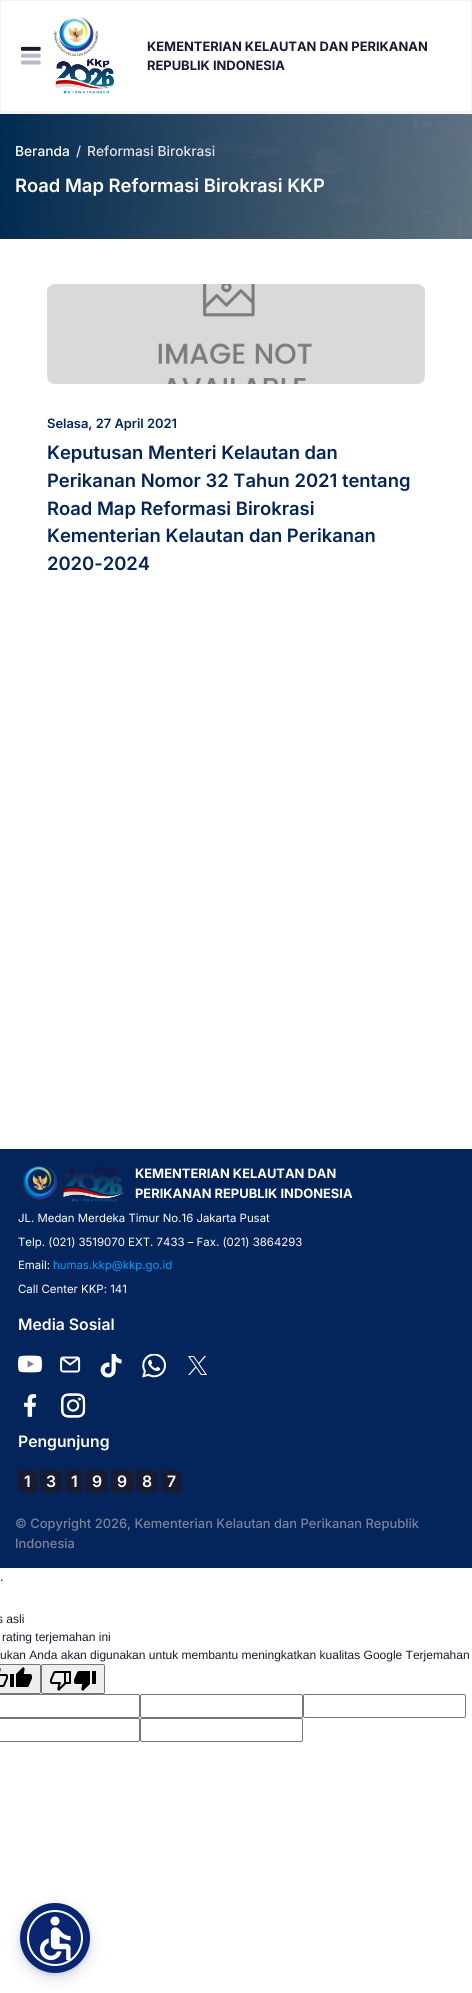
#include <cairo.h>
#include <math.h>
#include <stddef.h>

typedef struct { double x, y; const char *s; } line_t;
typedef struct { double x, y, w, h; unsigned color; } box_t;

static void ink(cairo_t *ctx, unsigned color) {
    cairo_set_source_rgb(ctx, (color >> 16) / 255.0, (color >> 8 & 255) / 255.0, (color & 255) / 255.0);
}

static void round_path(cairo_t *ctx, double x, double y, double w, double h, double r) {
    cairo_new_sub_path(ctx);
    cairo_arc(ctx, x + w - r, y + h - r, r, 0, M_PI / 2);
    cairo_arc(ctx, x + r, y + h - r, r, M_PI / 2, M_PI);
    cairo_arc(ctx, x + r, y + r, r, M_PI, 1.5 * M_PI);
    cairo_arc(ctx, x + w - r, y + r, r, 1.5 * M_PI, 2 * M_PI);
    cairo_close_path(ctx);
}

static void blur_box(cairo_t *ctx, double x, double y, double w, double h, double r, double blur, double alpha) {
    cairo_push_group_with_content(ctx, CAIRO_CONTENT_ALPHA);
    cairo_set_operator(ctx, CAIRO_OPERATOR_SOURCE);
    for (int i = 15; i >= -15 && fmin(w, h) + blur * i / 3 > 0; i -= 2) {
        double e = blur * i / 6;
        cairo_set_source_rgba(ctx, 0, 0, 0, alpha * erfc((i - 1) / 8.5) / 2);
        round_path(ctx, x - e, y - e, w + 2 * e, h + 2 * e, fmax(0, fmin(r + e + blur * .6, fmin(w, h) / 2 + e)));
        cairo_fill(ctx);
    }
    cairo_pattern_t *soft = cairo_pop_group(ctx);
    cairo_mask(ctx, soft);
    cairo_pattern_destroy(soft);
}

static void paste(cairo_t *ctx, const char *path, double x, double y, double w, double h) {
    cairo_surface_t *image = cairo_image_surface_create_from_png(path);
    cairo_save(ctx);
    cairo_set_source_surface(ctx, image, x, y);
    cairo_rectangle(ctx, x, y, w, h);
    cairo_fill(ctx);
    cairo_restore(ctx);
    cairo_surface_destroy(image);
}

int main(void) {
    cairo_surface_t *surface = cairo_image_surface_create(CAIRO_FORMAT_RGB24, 472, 1993);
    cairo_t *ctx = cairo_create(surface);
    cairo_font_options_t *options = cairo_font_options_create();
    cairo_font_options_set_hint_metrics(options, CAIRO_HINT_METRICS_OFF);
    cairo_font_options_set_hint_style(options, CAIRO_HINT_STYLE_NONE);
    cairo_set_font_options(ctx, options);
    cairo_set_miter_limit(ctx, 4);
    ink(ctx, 0xFFFFFF);
    cairo_paint(ctx);
    {
        static const box_t items[] = {
            {0, 0, 472, 1, 0xF4F4F4},
            {471, 0, 1, 114, 0xF4F4F4},
            {0, 111, 472, 3, 0xF4F4F4},
            {0, 0, 1, 114, 0xF4F4F4},
        };
        for (size_t i = 0; i < sizeof items / sizeof *items; i++) {
            ink(ctx, items[i].color);
            cairo_rectangle(ctx, items[i].x, items[i].y, items[i].w, items[i].h);
            cairo_fill(ctx);
        }
    }
    paste(ctx, "media/1.png", 20, 46, 21, 5);
    paste(ctx, "media/2.png", 21, 53, 20, 12);
    paste(ctx, "media/3.png", 54, 17, 44, 39);
    paste(ctx, "media/4.png", 55, 58, 61, 36);
    cairo_select_font_face(ctx, "Inter", CAIRO_FONT_SLANT_NORMAL, CAIRO_FONT_WEIGHT_BOLD);
    cairo_set_font_size(ctx, 12.9);
    ink(ctx, 0x181C32);
    cairo_move_to(ctx, 147, 51);
    cairo_show_text(ctx, "KEMENTERIAN KELAUTAN DAN PERIKANAN");
    cairo_move_to(ctx, 147, 70);
    cairo_show_text(ctx, "REPUBLIK INDONESIA");
    paste(ctx, "media/5.png", 0, 114, 472, 125);
    cairo_select_font_face(ctx, "Inter Medium", CAIRO_FONT_SLANT_NORMAL, CAIRO_FONT_WEIGHT_NORMAL);
    cairo_set_font_size(ctx, 13.75);
    ink(ctx, 0xFFFFFF);
    cairo_move_to(ctx, 15, 156);
    cairo_show_text(ctx, "Beranda");
    ink(ctx, 0xE1E3EA);
    cairo_move_to(ctx, 76, 156);
    cairo_show_text(ctx, "/");
    cairo_move_to(ctx, 87, 156);
    cairo_show_text(ctx, "Reformasi Birokrasi");
    cairo_select_font_face(ctx, "Inter SemiBold", CAIRO_FONT_SLANT_NORMAL, CAIRO_FONT_WEIGHT_NORMAL);
    cairo_set_font_size(ctx, 18.4);
    ink(ctx, 0xFFFFFF);
    cairo_move_to(ctx, 15, 192);
    cairo_show_text(ctx, "Road Map Reformasi Birokrasi KKP");
    paste(ctx, "media/6.png", 47, 284, 378, 100);
    cairo_set_font_size(ctx, 12.9);
    ink(ctx, 0x03255C);
    cairo_move_to(ctx, 47, 428);
    cairo_show_text(ctx, "Selasa, 27 April 2021");
    cairo_set_font_size(ctx, 18.4);
    {
        static const line_t items[] = {
            {47, 459, "Keputusan Menteri Kelautan dan"},
            {47, 487, "Perikanan Nomor 32 Tahun 2021 tentang"},
            {47, 515, "Road Map Reformasi Birokrasi"},
            {47, 542, "Kementerian Kelautan dan Perikanan"},
            {47, 570, "2020-2024"},
        };
        for (size_t i = 0; i < sizeof items / sizeof *items; i++) {
            cairo_move_to(ctx, items[i].x, items[i].y);
            cairo_show_text(ctx, items[i].s);
        }
    }
    cairo_rectangle(ctx, 0, 1149, 472, 419);
    cairo_fill(ctx);
    paste(ctx, "media/7.png", 18, 1165, 44, 39);
    paste(ctx, "media/8.png", 63, 1166, 62, 36);
    cairo_select_font_face(ctx, "Inter", CAIRO_FONT_SLANT_NORMAL, CAIRO_FONT_WEIGHT_BOLD);
    cairo_set_font_size(ctx, 12.9);
    ink(ctx, 0xFFFFFF);
    cairo_move_to(ctx, 135, 1178);
    cairo_show_text(ctx, "KEMENTERIAN KELAUTAN DAN");
    cairo_move_to(ctx, 135, 1198);
    cairo_show_text(ctx, "PERIKANAN REPUBLIK INDONESIA");
    cairo_select_font_face(ctx, "Inter", CAIRO_FONT_SLANT_NORMAL, CAIRO_FONT_WEIGHT_NORMAL);
    cairo_set_font_size(ctx, 11.4);
    {
        static const line_t items[] = {
            {18, 1222, "JL. Medan Merdeka Timur No.16 Jakarta Pusat"},
            {18, 1246, "Telp. (021) 3519070 EXT. 7433 – Fax. (021) 3864293"},
            {18, 1269, "Email:"},
        };
        for (size_t i = 0; i < sizeof items / sizeof *items; i++) {
            cairo_move_to(ctx, items[i].x, items[i].y);
            cairo_show_text(ctx, items[i].s);
        }
    }
    ink(ctx, 0x009EF7);
    cairo_move_to(ctx, 53, 1269);
    cairo_show_text(ctx, "humas.kkp@kkp.go.id");
    ink(ctx, 0xFFFFFF);
    cairo_move_to(ctx, 18, 1293);
    cairo_show_text(ctx, "Call Center KKP: 141");
    cairo_select_font_face(ctx, "Inter SemiBold", CAIRO_FONT_SLANT_NORMAL, CAIRO_FONT_WEIGHT_NORMAL);
    cairo_set_font_size(ctx, 15.75);
    cairo_move_to(ctx, 18, 1330);
    cairo_show_text(ctx, "Media Sosial");
    paste(ctx, "media/9.png", 18, 1355, 24, 18);
    paste(ctx, "media/10.png", 60, 1356, 21, 17);
    paste(ctx, "media/11.png", 100, 1354, 22, 24);
    paste(ctx, "media/12.png", 142, 1354, 24, 24);
    paste(ctx, "media/13.png", 188, 1356, 19, 19);
    paste(ctx, "media/14.png", 24, 1394, 13, 23);
    paste(ctx, "media/15.png", 61, 1393, 25, 25);
    cairo_move_to(ctx, 18, 1447);
    cairo_show_text(ctx, "Pengunjung");
    ink(ctx, 0x181C32);
    round_path(ctx, 18, 1470, 19, 23, 5);
    cairo_fill(ctx);
    ink(ctx, 0xFFFFFF);
    cairo_move_to(ctx, 24, 1487);
    cairo_show_text(ctx, "1");
    ink(ctx, 0x181C32);
    round_path(ctx, 40, 1470, 22, 23, 5);
    cairo_fill(ctx);
    ink(ctx, 0xFFFFFF);
    cairo_move_to(ctx, 46, 1487);
    cairo_show_text(ctx, "3");
    ink(ctx, 0x181C32);
    round_path(ctx, 65, 1470, 18, 23, 5);
    cairo_fill(ctx);
    ink(ctx, 0xFFFFFF);
    cairo_move_to(ctx, 71, 1487);
    cairo_show_text(ctx, "1");
    ink(ctx, 0x181C32);
    round_path(ctx, 86, 1470, 22, 23, 5);
    cairo_fill(ctx);
    ink(ctx, 0xFFFFFF);
    cairo_move_to(ctx, 92, 1487);
    cairo_show_text(ctx, "9");
    ink(ctx, 0x181C32);
    round_path(ctx, 111, 1470, 22, 23, 5);
    cairo_fill(ctx);
    ink(ctx, 0xFFFFFF);
    cairo_move_to(ctx, 117, 1487);
    cairo_show_text(ctx, "9");
    ink(ctx, 0x181C32);
    round_path(ctx, 136, 1470, 22, 23, 5);
    cairo_fill(ctx);
    ink(ctx, 0xFFFFFF);
    cairo_move_to(ctx, 142, 1487);
    cairo_show_text(ctx, "8");
    ink(ctx, 0x181C32);
    round_path(ctx, 161, 1470, 21, 23, 5);
    cairo_fill(ctx);
    ink(ctx, 0xFFFFFF);
    cairo_move_to(ctx, 167, 1487);
    cairo_show_text(ctx, "7");
    cairo_select_font_face(ctx, "Inter Medium", CAIRO_FONT_SLANT_NORMAL, CAIRO_FONT_WEIGHT_NORMAL);
    cairo_set_font_size(ctx, 12.9);
    ink(ctx, 0x7E8299);
    cairo_move_to(ctx, 15, 1528);
    cairo_show_text(ctx, "© Copyright 2026, Kementerian Kelautan dan Perikanan Republik");
    cairo_move_to(ctx, 15, 1548);
    cairo_show_text(ctx, "Indonesia");
    cairo_select_font_face(ctx, "Inter", CAIRO_FONT_SLANT_NORMAL, CAIRO_FONT_WEIGHT_NORMAL);
    cairo_set_font_size(ctx, 12);
    ink(ctx, 0x181C32);
    cairo_move_to(ctx, 0, 1581);
    cairo_show_text(ctx, ".");
    cairo_select_font_face(ctx, "Liberation Sans", CAIRO_FONT_SLANT_NORMAL, CAIRO_FONT_WEIGHT_NORMAL);
    {
        static const line_t items[] = {
            {-3, 1623, "s asli"},
            {2, 1641, "rating terjemahan ini"},
            {0, 1659, "ukan Anda akan digunakan untuk membantu meningkatkan kualitas Google Terjemahan"},
        };
        for (size_t i = 0; i < sizeof items / sizeof *items; i++) {
            cairo_move_to(ctx, items[i].x, items[i].y);
            cairo_show_text(ctx, items[i].s);
        }
    }
    ink(ctx, 0xEFEFEF);
    round_path(ctx, -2.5, 1664.5, 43, 29, 1.5);
    cairo_fill_preserve(ctx);
    ink(ctx, 0x767676);
    cairo_set_line_width(ctx, 1);
    cairo_stroke(ctx);
    paste(ctx, "media/16.png", 0, 1668, 8, 19);
    paste(ctx, "media/17.png", 10, 1667, 22, 20);
    ink(ctx, 0xEFEFEF);
    round_path(ctx, 41.5, 1664.5, 63, 29, 1.5);
    cairo_fill_preserve(ctx);
    ink(ctx, 0x767676);
    cairo_stroke(ctx);
    paste(ctx, "media/18.png", 50, 1671, 21, 20);
    paste(ctx, "media/19.png", 74, 1671, 22, 20);
    round_path(ctx, -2.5, 1694.5, 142, 23, 1.5);
    cairo_stroke(ctx);
    round_path(ctx, 140.5, 1694.5, 162, 23, 1.5);
    cairo_stroke(ctx);
    round_path(ctx, 303.5, 1694.5, 162, 23, 1.5);
    cairo_stroke(ctx);
    round_path(ctx, -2.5, 1718.5, 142, 23, 1.5);
    cairo_stroke(ctx);
    round_path(ctx, 140.5, 1718.5, 162, 23, 1.5);
    cairo_stroke(ctx);
    ink(ctx, 0x5D6494);
    blur_box(ctx, 20, 1905, 70, 70, 35, 2, 0.2);
    ink(ctx, 0x252C61);
    blur_box(ctx, 20, 1908, 70, 70, 35, 7.5, 0.15);
    ink(ctx, 0x0A2673);
    cairo_arc(ctx, 55, 1938, 35, 0, 2 * M_PI);
    cairo_fill(ctx);
    cairo_arc(ctx, 55, 1938, 27, 0, 2 * M_PI);
    ink(ctx, 0xFFFFFF);
    cairo_set_line_width(ctx, 2);
    cairo_stroke(ctx);
    paste(ctx, "media/20.png", 39, 1916, 32, 45);
    cairo_surface_write_to_png(surface, "image.png");
    cairo_font_options_destroy(options);
    cairo_destroy(ctx);
    cairo_surface_destroy(surface);
    return 0;
}
